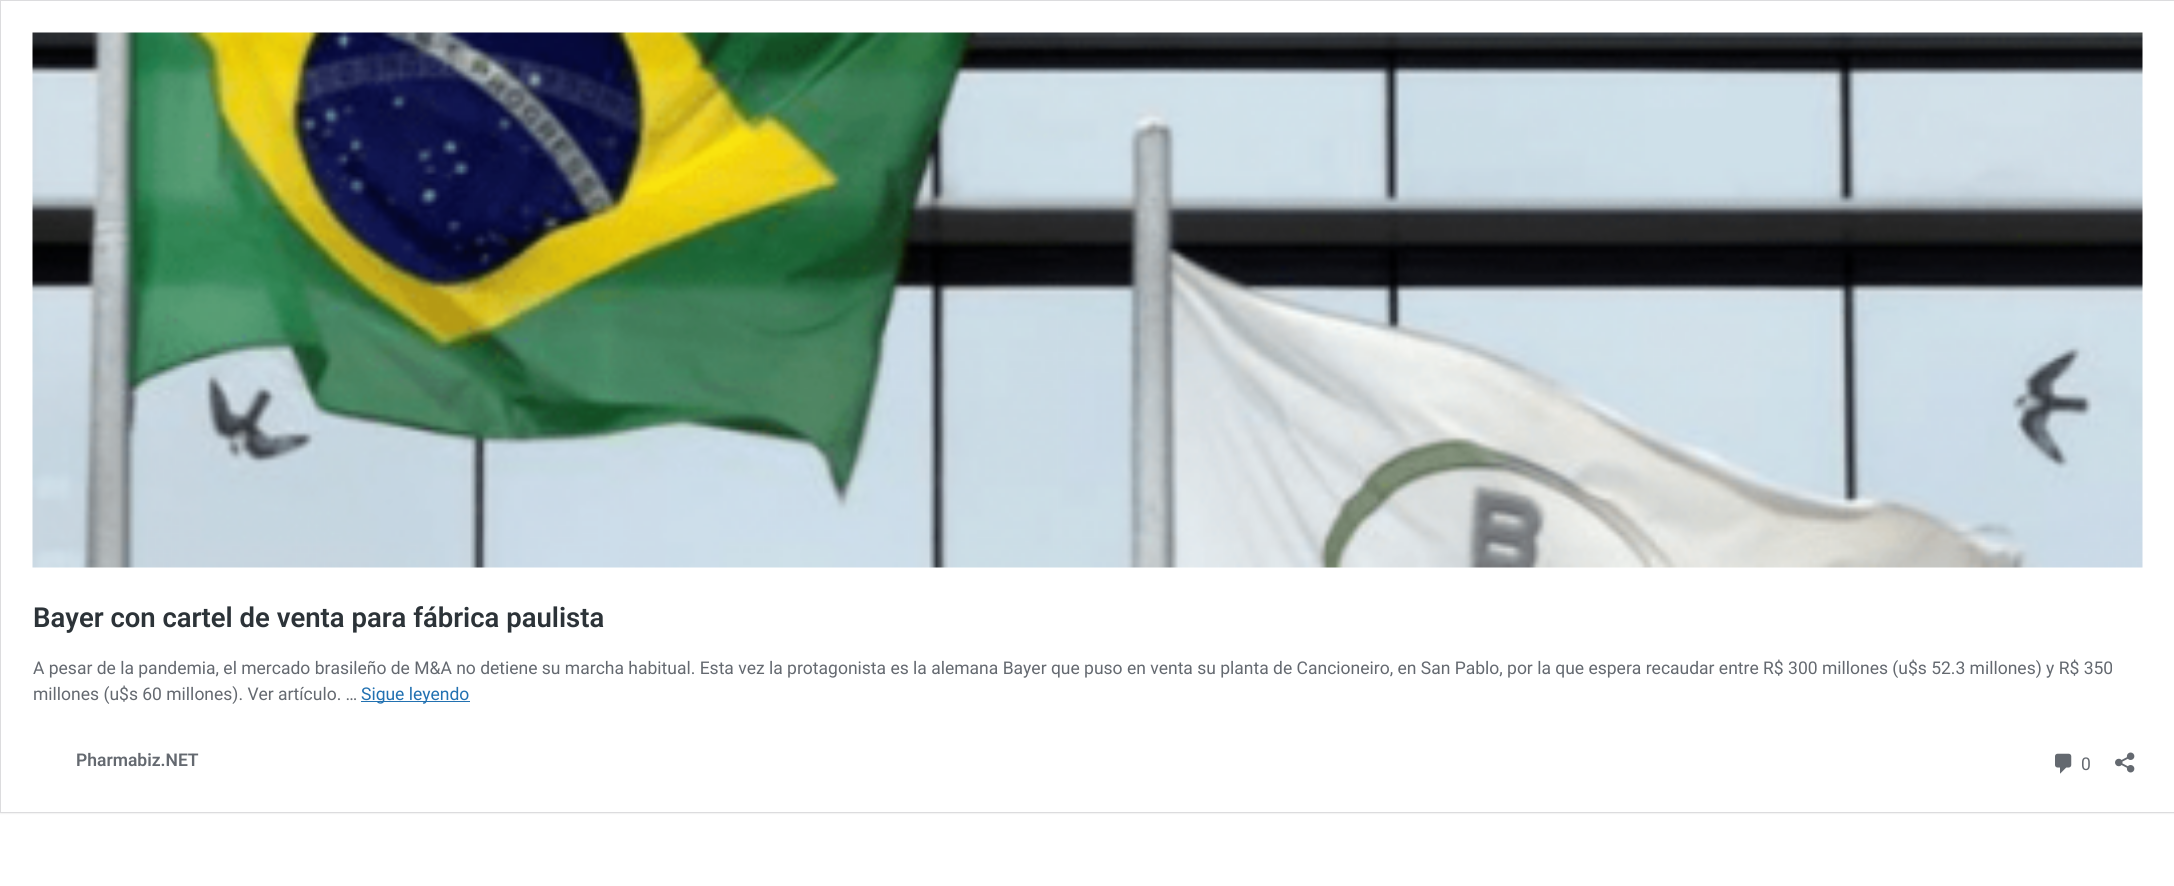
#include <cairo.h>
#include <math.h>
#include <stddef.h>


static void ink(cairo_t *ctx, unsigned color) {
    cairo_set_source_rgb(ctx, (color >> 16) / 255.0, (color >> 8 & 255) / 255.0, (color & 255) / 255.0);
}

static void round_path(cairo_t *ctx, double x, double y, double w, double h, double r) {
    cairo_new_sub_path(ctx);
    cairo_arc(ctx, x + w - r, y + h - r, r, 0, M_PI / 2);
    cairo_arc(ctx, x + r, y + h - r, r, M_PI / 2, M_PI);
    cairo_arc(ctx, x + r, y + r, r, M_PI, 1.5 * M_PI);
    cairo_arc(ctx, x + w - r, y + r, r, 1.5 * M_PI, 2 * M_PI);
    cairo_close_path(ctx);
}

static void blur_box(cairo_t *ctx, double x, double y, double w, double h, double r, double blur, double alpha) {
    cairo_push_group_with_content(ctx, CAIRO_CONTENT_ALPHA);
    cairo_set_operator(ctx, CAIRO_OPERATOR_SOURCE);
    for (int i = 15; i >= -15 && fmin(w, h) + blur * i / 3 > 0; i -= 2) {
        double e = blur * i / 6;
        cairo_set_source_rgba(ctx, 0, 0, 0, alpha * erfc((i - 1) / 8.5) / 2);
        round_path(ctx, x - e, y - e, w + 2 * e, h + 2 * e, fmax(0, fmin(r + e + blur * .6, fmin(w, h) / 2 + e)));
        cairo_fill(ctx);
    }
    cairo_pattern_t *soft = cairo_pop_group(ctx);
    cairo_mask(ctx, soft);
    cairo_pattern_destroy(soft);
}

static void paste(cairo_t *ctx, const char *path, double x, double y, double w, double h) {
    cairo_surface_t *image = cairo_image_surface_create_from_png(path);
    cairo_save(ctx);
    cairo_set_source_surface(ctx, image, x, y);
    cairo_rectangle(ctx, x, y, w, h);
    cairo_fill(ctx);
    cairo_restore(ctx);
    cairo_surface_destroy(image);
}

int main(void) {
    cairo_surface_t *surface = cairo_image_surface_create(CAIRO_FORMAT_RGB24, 2174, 886);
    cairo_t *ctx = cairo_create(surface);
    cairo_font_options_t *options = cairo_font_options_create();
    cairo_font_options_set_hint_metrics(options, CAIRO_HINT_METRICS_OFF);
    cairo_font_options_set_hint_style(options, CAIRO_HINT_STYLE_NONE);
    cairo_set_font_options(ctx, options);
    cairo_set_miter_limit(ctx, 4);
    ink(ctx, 0xFFFFFF);
    cairo_paint(ctx);
    ink(ctx, 0x000000);
    blur_box(ctx, 0, 1, 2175, 813, 0, 0.5, 0.05);
    ink(ctx, 0xFFFFFF);
    cairo_rectangle(ctx, 0.5, 0.5, 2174, 812);
    cairo_fill_preserve(ctx);
    ink(ctx, 0xDCDCDE);
    cairo_set_line_width(ctx, 1);
    cairo_stroke(ctx);
    paste(ctx, "media/1.png", 32, 32, 2111, 536);
    cairo_select_font_face(ctx, "Roboto SemiBold", CAIRO_FONT_SLANT_NORMAL, CAIRO_FONT_WEIGHT_NORMAL);
    cairo_set_font_size(ctx, 27.5);
    ink(ctx, 0x2C3338);
    cairo_move_to(ctx, 33, 627);
    cairo_show_text(ctx, "Bayer con cartel de venta para fábrica paulista");
    cairo_select_font_face(ctx, "Roboto", CAIRO_FONT_SLANT_NORMAL, CAIRO_FONT_WEIGHT_NORMAL);
    cairo_set_font_size(ctx, 17.5);
    ink(ctx, 0x646970);
    cairo_move_to(ctx, 33, 674);
    cairo_show_text(ctx, "A pesar de la pandemia, el mercado brasileño de M&A no detiene su marcha habitual. Esta vez la protagonista es la alemana Bayer que puso en venta su planta de Cancioneiro, en San Pablo, por la que espera recaudar entre R$ 300 millones (u$s 52.3 millones) y R$ 350");
    cairo_move_to(ctx, 33, 700);
    cairo_show_text(ctx, "millones (u$s 60 millones). Ver artículo. …");
    ink(ctx, 0x2271B1);
    cairo_rectangle(ctx, 361, 701, 109, 1);
    cairo_fill(ctx);
    cairo_move_to(ctx, 361, 700);
    cairo_show_text(ctx, "Sigue leyendo");
    cairo_select_font_face(ctx, "Roboto SemiBold", CAIRO_FONT_SLANT_NORMAL, CAIRO_FONT_WEIGHT_NORMAL);
    ink(ctx, 0x646970);
    cairo_move_to(ctx, 76, 766);
    cairo_show_text(ctx, "Pharmabiz.NET");
    paste(ctx, "media/2.png", 2055, 753, 17, 21);
    cairo_select_font_face(ctx, "Roboto", CAIRO_FONT_SLANT_NORMAL, CAIRO_FONT_WEIGHT_NORMAL);
    cairo_move_to(ctx, 2081, 770);
    cairo_show_text(ctx, "0");
    paste(ctx, "media/3.png", 2115, 752, 20, 21);
    cairo_surface_write_to_png(surface, "image.png");
    cairo_font_options_destroy(options);
    cairo_destroy(ctx);
    cairo_surface_destroy(surface);
    return 0;
}
